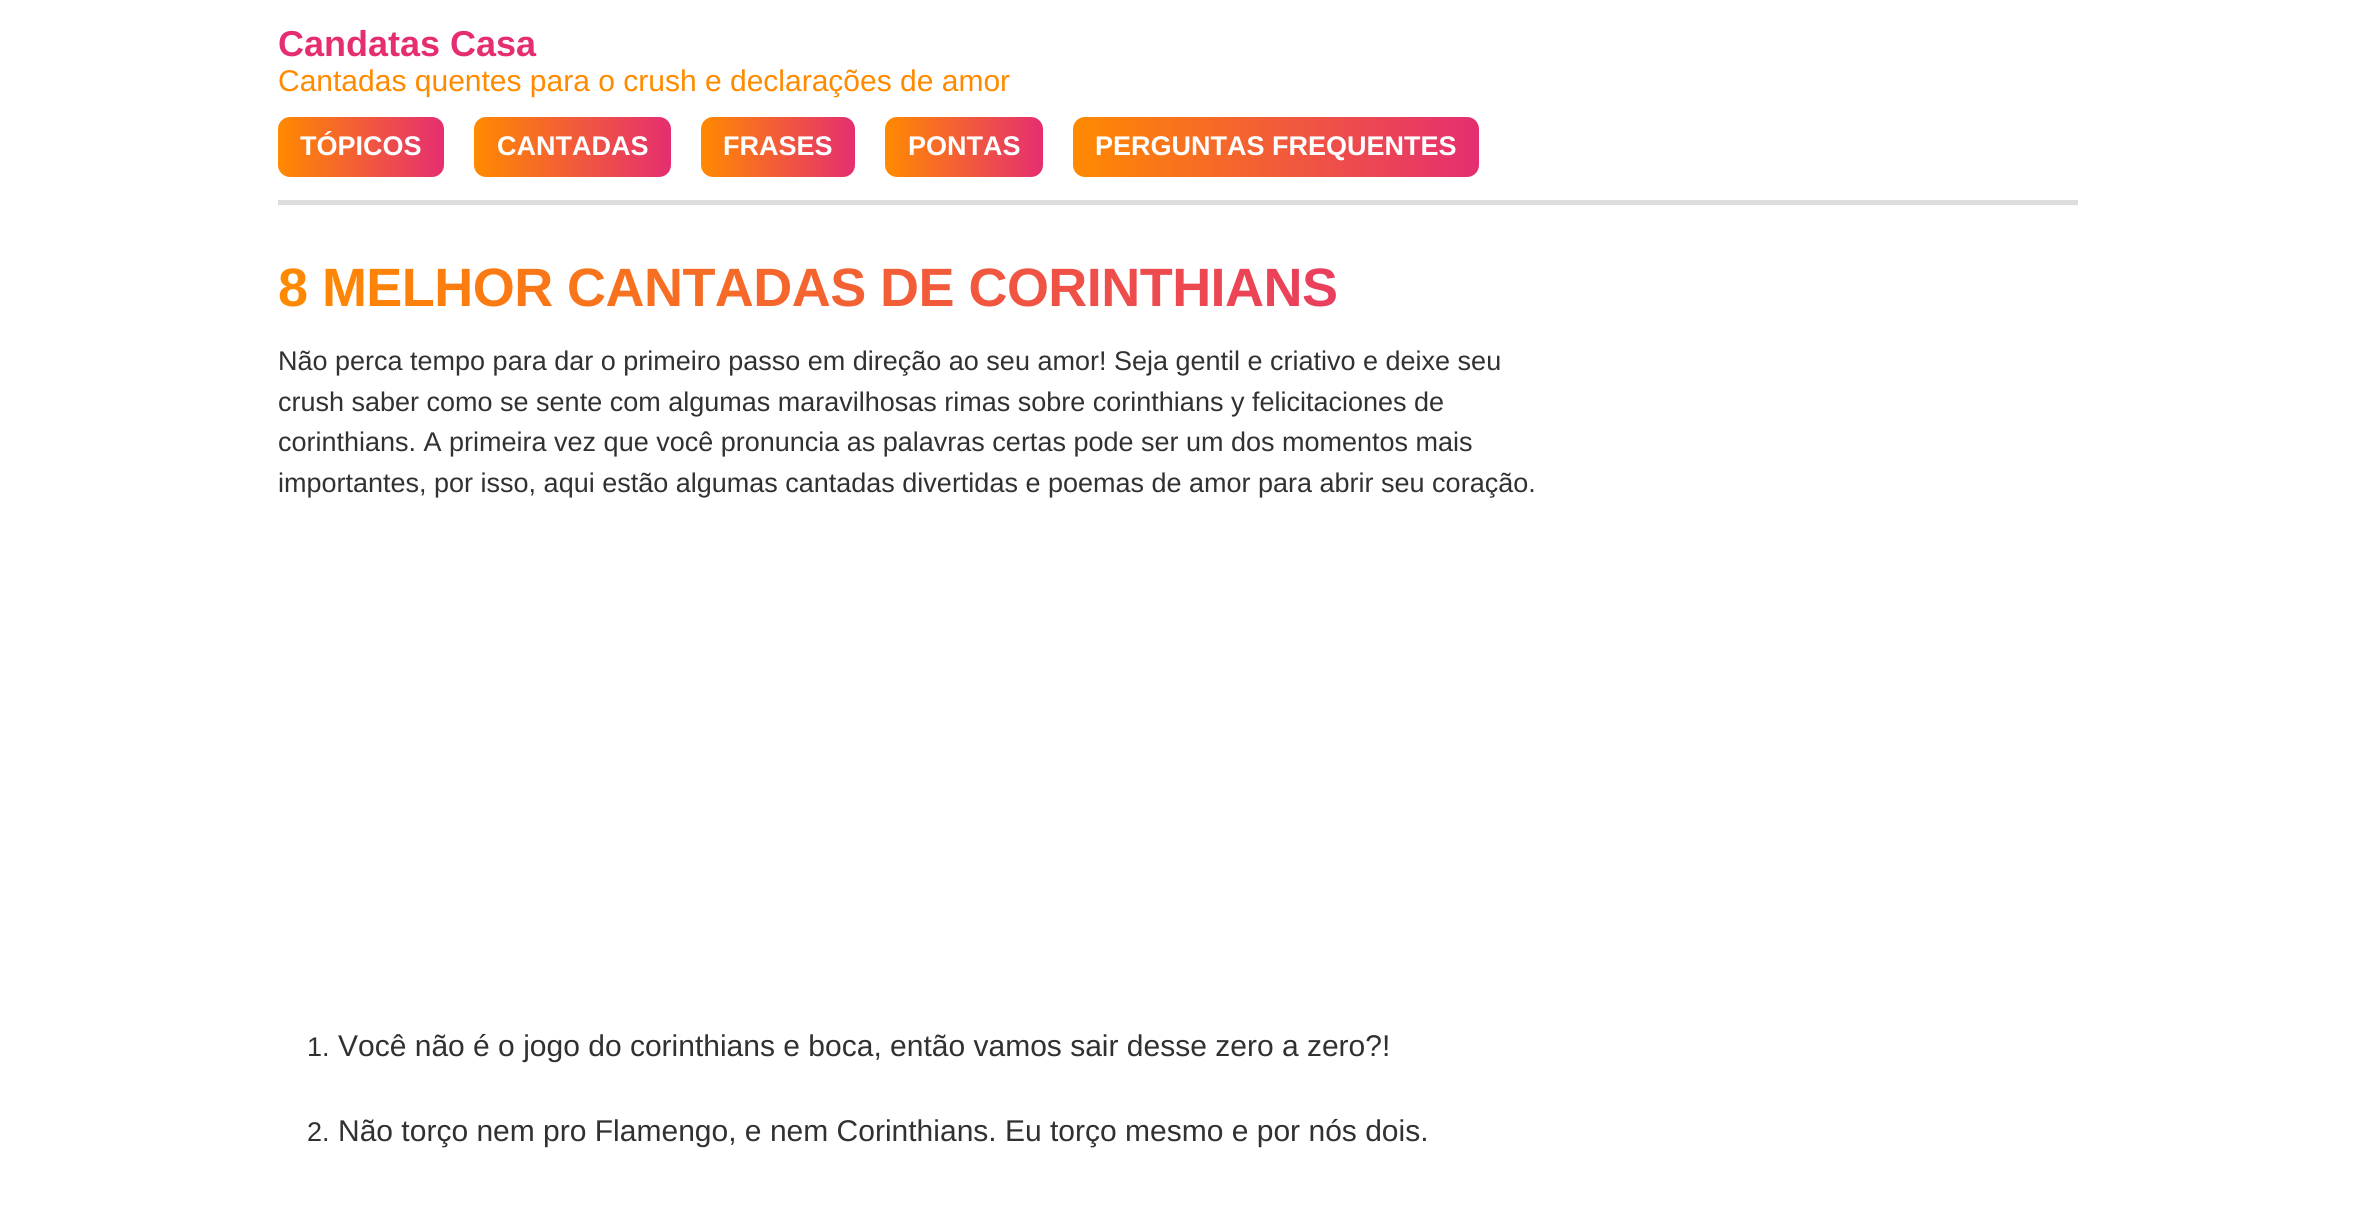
#include <cairo.h>
#include <math.h>
#include <stddef.h>

typedef struct { double x, y; const char *s; } line_t;

static void ink(cairo_t *ctx, unsigned color) {
    cairo_set_source_rgb(ctx, (color >> 16) / 255.0, (color >> 8 & 255) / 255.0, (color & 255) / 255.0);
}

static void write_spaced(cairo_t *ctx, double x, double y, const char *s, double letter, double word) {
    cairo_move_to(ctx, x, y);
    while (*s) {
        char ch[5] = {0};
        int n = 0;
        do ch[n++] = *s++; while ((*s & 0xC0) == 0x80);
        cairo_show_text(ctx, ch);
        cairo_rel_move_to(ctx, letter + word * (*ch == ' '), 0);
    }
}

static void round_path(cairo_t *ctx, double x, double y, double w, double h, double r) {
    cairo_new_sub_path(ctx);
    cairo_arc(ctx, x + w - r, y + h - r, r, 0, M_PI / 2);
    cairo_arc(ctx, x + r, y + h - r, r, M_PI / 2, M_PI);
    cairo_arc(ctx, x + r, y + r, r, M_PI, 1.5 * M_PI);
    cairo_arc(ctx, x + w - r, y + r, r, 1.5 * M_PI, 2 * M_PI);
    cairo_close_path(ctx);
}

int main(void) {
    cairo_surface_t *surface = cairo_image_surface_create(CAIRO_FORMAT_RGB24, 2355, 1212);
    cairo_t *ctx = cairo_create(surface);
    cairo_font_options_t *options = cairo_font_options_create();
    cairo_font_options_set_hint_metrics(options, CAIRO_HINT_METRICS_OFF);
    cairo_font_options_set_hint_style(options, CAIRO_HINT_STYLE_NONE);
    cairo_set_font_options(ctx, options);
    cairo_set_miter_limit(ctx, 4);
    cairo_pattern_t *gradient;
    ink(ctx, 0xFFFFFF);
    cairo_paint(ctx);
    ink(ctx, 0xDDDDDD);
    cairo_rectangle(ctx, 278, 200, 1800, 5);
    cairo_fill(ctx);
    cairo_select_font_face(ctx, "Liberation Sans", CAIRO_FONT_SLANT_NORMAL, CAIRO_FONT_WEIGHT_BOLD);
    cairo_set_font_size(ctx, 36);
    ink(ctx, 0xE52E71);
    cairo_move_to(ctx, 278, 56);
    cairo_show_text(ctx, "Candatas Casa");
    cairo_select_font_face(ctx, "Liberation Sans", CAIRO_FONT_SLANT_NORMAL, CAIRO_FONT_WEIGHT_NORMAL);
    cairo_set_font_size(ctx, 30);
    ink(ctx, 0xFF8A00);
    cairo_move_to(ctx, 278, 91);
    cairo_show_text(ctx, "Cantadas quentes para o crush e declarações de amor");
    gradient = cairo_pattern_create_linear(278, 147, 444, 147);
    cairo_pattern_add_color_stop_rgba(gradient, 0, 1, 0.541, 0, 1);
    cairo_pattern_add_color_stop_rgba(gradient, 1, 0.898, 0.18, 0.443, 1);
    cairo_set_source(ctx, gradient);
    cairo_pattern_destroy(gradient);
    round_path(ctx, 278, 117, 166, 60, 12);
    cairo_fill(ctx);
    cairo_select_font_face(ctx, "Liberation Sans", CAIRO_FONT_SLANT_NORMAL, CAIRO_FONT_WEIGHT_BOLD);
    cairo_set_font_size(ctx, 27);
    ink(ctx, 0xFFFFFF);
    cairo_move_to(ctx, 300, 155);
    cairo_show_text(ctx, "TÓPICOS");
    gradient = cairo_pattern_create_linear(474, 147, 671, 147);
    cairo_pattern_add_color_stop_rgba(gradient, 0, 1, 0.541, 0, 1);
    cairo_pattern_add_color_stop_rgba(gradient, 1, 0.898, 0.18, 0.443, 1);
    cairo_set_source(ctx, gradient);
    cairo_pattern_destroy(gradient);
    round_path(ctx, 474, 117, 197, 60, 12);
    cairo_fill(ctx);
    ink(ctx, 0xFFFFFF);
    cairo_move_to(ctx, 497, 155);
    cairo_show_text(ctx, "CANTADAS");
    gradient = cairo_pattern_create_linear(701, 147, 855, 147);
    cairo_pattern_add_color_stop_rgba(gradient, 0, 1, 0.541, 0, 1);
    cairo_pattern_add_color_stop_rgba(gradient, 1, 0.898, 0.18, 0.443, 1);
    cairo_set_source(ctx, gradient);
    cairo_pattern_destroy(gradient);
    round_path(ctx, 701, 117, 154, 60, 12);
    cairo_fill(ctx);
    ink(ctx, 0xFFFFFF);
    cairo_move_to(ctx, 723, 155);
    cairo_show_text(ctx, "FRASES");
    gradient = cairo_pattern_create_linear(885, 147, 1043, 147);
    cairo_pattern_add_color_stop_rgba(gradient, 0, 1, 0.541, 0, 1);
    cairo_pattern_add_color_stop_rgba(gradient, 1, 0.898, 0.18, 0.443, 1);
    cairo_set_source(ctx, gradient);
    cairo_pattern_destroy(gradient);
    round_path(ctx, 885, 117, 158, 60, 12);
    cairo_fill(ctx);
    ink(ctx, 0xFFFFFF);
    cairo_move_to(ctx, 908, 155);
    cairo_show_text(ctx, "PONTAS");
    gradient = cairo_pattern_create_linear(1073, 147, 1479, 147);
    cairo_pattern_add_color_stop_rgba(gradient, 0, 1, 0.541, 0, 1);
    cairo_pattern_add_color_stop_rgba(gradient, 1, 0.898, 0.18, 0.443, 1);
    cairo_set_source(ctx, gradient);
    cairo_pattern_destroy(gradient);
    round_path(ctx, 1073, 117, 406, 60, 12);
    cairo_fill(ctx);
    ink(ctx, 0xFFFFFF);
    cairo_move_to(ctx, 1095, 155);
    cairo_show_text(ctx, "PERGUNTAS FREQUENTES");
    cairo_set_font_size(ctx, 54);
    gradient = cairo_pattern_create_linear(278, 288, 1559, 288);
    cairo_pattern_add_color_stop_rgba(gradient, 0, 1, 0.541, 0, 1);
    cairo_pattern_add_color_stop_rgba(gradient, 1, 0.898, 0.18, 0.443, 1);
    cairo_set_source(ctx, gradient);
    cairo_pattern_destroy(gradient);
    write_spaced(ctx, 278, 306, "8 MELHOR CANTADAS DE CORINTHIANS", -0.55, 0);
    cairo_select_font_face(ctx, "Liberation Sans", CAIRO_FONT_SLANT_NORMAL, CAIRO_FONT_WEIGHT_NORMAL);
    cairo_set_font_size(ctx, 27);
    ink(ctx, 0x313131);
    {
        static const line_t items[] = {
            {278, 370, "Não perca tempo para dar o primeiro passo em direção ao seu amor! Seja gentil e criativo e deixe seu"},
            {278, 411, "crush saber como se sente com algumas maravilhosas rimas sobre corinthians y felicitaciones de"},
            {278, 451, "corinthians. A primeira vez que você pronuncia as palavras certas pode ser um dos momentos mais"},
            {278, 492, "importantes, por isso, aqui estão algumas cantadas divertidas e poemas de amor para abrir seu coração."},
            {307, 1056, "1."},
        };
        for (size_t i = 0; i < sizeof items / sizeof *items; i++) {
            cairo_move_to(ctx, items[i].x, items[i].y);
            cairo_show_text(ctx, items[i].s);
        }
    }
    cairo_set_font_size(ctx, 30);
    cairo_move_to(ctx, 338, 1056);
    cairo_show_text(ctx, "Você não é o jogo do corinthians e boca, então vamos sair desse zero a zero?!");
    cairo_set_font_size(ctx, 27);
    cairo_move_to(ctx, 307, 1141);
    cairo_show_text(ctx, "2.");
    cairo_set_font_size(ctx, 30);
    cairo_move_to(ctx, 338, 1141);
    cairo_show_text(ctx, "Não torço nem pro Flamengo, e nem Corinthians. Eu torço mesmo e por nós dois.");
    cairo_surface_write_to_png(surface, "image.png");
    cairo_font_options_destroy(options);
    cairo_destroy(ctx);
    cairo_surface_destroy(surface);
    return 0;
}
